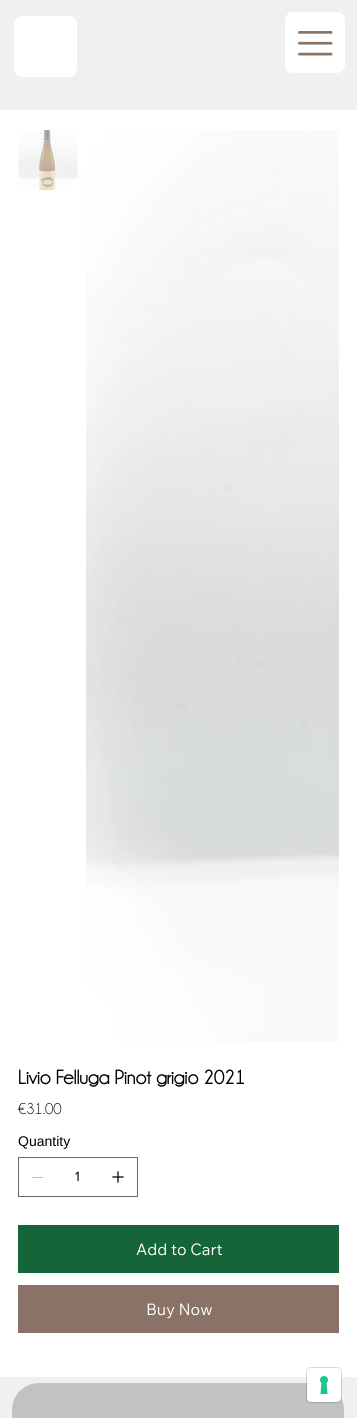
#include <cairo.h>
#include <math.h>
#include <stddef.h>


static void ink(cairo_t *ctx, unsigned color) {
    cairo_set_source_rgb(ctx, (color >> 16) / 255.0, (color >> 8 & 255) / 255.0, (color & 255) / 255.0);
}

static void round_path(cairo_t *ctx, double x, double y, double w, double h, double r) {
    cairo_new_sub_path(ctx);
    cairo_arc(ctx, x + w - r, y + h - r, r, 0, M_PI / 2);
    cairo_arc(ctx, x + r, y + h - r, r, M_PI / 2, M_PI);
    cairo_arc(ctx, x + r, y + r, r, M_PI, 1.5 * M_PI);
    cairo_arc(ctx, x + w - r, y + r, r, 1.5 * M_PI, 2 * M_PI);
    cairo_close_path(ctx);
}

static void paste(cairo_t *ctx, const char *path, double x, double y, double w, double h) {
    cairo_surface_t *image = cairo_image_surface_create_from_png(path);
    cairo_save(ctx);
    cairo_set_source_surface(ctx, image, x, y);
    cairo_rectangle(ctx, x, y, w, h);
    cairo_fill(ctx);
    cairo_restore(ctx);
    cairo_surface_destroy(image);
}

int main(void) {
    cairo_surface_t *surface = cairo_image_surface_create(CAIRO_FORMAT_RGB24, 357, 1418);
    cairo_t *ctx = cairo_create(surface);
    cairo_font_options_t *options = cairo_font_options_create();
    cairo_font_options_set_hint_metrics(options, CAIRO_HINT_METRICS_OFF);
    cairo_font_options_set_hint_style(options, CAIRO_HINT_STYLE_NONE);
    cairo_set_font_options(ctx, options);
    cairo_set_miter_limit(ctx, 4);
    ink(ctx, 0xFFFFFF);
    cairo_paint(ctx);
    ink(ctx, 0xF0F0F0);
    cairo_rectangle(ctx, 0, 0, 357, 110);
    cairo_fill(ctx);
    ink(ctx, 0xFFFFFF);
    round_path(ctx, 14, 16, 63, 61, 8);
    cairo_fill(ctx);
    round_path(ctx, 285, 12, 60, 61, 8);
    cairo_fill(ctx);
    paste(ctx, "media/1.png", 298, 31, 35, 25);
    paste(ctx, "media/2.png", 18, 130, 60, 60);
    paste(ctx, "media/3.png", 86, 130, 253, 912);
    cairo_select_font_face(ctx, "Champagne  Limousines", CAIRO_FONT_SLANT_NORMAL, CAIRO_FONT_WEIGHT_BOLD);
    cairo_set_font_size(ctx, 20);
    ink(ctx, 0x000000);
    cairo_move_to(ctx, 18, 1084);
    cairo_show_text(ctx, "Livio Felluga Pinot grigio 2021");
    cairo_select_font_face(ctx, "Champagne  Limousines", CAIRO_FONT_SLANT_NORMAL, CAIRO_FONT_WEIGHT_NORMAL);
    cairo_set_font_size(ctx, 16);
    cairo_move_to(ctx, 18, 1114);
    cairo_show_text(ctx, "€31.00");
    cairo_select_font_face(ctx, "Liberation Sans", CAIRO_FONT_SLANT_NORMAL, CAIRO_FONT_WEIGHT_NORMAL);
    cairo_set_font_size(ctx, 14);
    cairo_move_to(ctx, 18, 1146);
    cairo_show_text(ctx, "Quantity");
    cairo_rectangle(ctx, 18.5, 1157.5, 119, 39);
    ink(ctx, 0x666666);
    cairo_set_line_width(ctx, 1);
    cairo_stroke(ctx);
    ink(ctx, 0xC2C2C2);
    cairo_rectangle(ctx, 32, 1177, 11, 1);
    cairo_fill(ctx);
    cairo_select_font_face(ctx, "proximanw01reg", CAIRO_FONT_SLANT_NORMAL, CAIRO_FONT_WEIGHT_NORMAL);
    ink(ctx, 0x000000);
    cairo_move_to(ctx, 75, 1181);
    cairo_show_text(ctx, "1");
    paste(ctx, "media/4.png", 112, 1171, 12, 12);
    ink(ctx, 0x156539);
    cairo_rectangle(ctx, 18, 1225, 321, 48);
    cairo_fill(ctx);
    cairo_select_font_face(ctx, "Wix Madefor Text", CAIRO_FONT_SLANT_NORMAL, CAIRO_FONT_WEIGHT_NORMAL);
    cairo_set_font_size(ctx, 16);
    ink(ctx, 0xFFFFFF);
    cairo_move_to(ctx, 136, 1255);
    cairo_show_text(ctx, "Add to Cart");
    ink(ctx, 0x8A7366);
    cairo_rectangle(ctx, 18, 1285, 321, 48);
    cairo_fill(ctx);
    ink(ctx, 0xFFFFFF);
    cairo_move_to(ctx, 146, 1315);
    cairo_show_text(ctx, "Buy Now");
    ink(ctx, 0xF0F0F0);
    cairo_rectangle(ctx, 0, 1377, 357, 41);
    cairo_fill(ctx);
    ink(ctx, 0xC2C2C2);
    round_path(ctx, 12, 1383, 332, 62, 27);
    cairo_fill(ctx);
    round_path(ctx, 306.5, 1367.5, 35, 35, 4.5);
    cairo_set_source_rgba(ctx, 0, 0, 0, 0.15);
    cairo_stroke(ctx);
    ink(ctx, 0xFFFFFF);
    round_path(ctx, 307, 1368, 34, 34, 4);
    cairo_fill(ctx);
    paste(ctx, "media/5.png", 320, 1376, 8, 18);
    cairo_surface_write_to_png(surface, "image.png");
    cairo_font_options_destroy(options);
    cairo_destroy(ctx);
    cairo_surface_destroy(surface);
    return 0;
}
